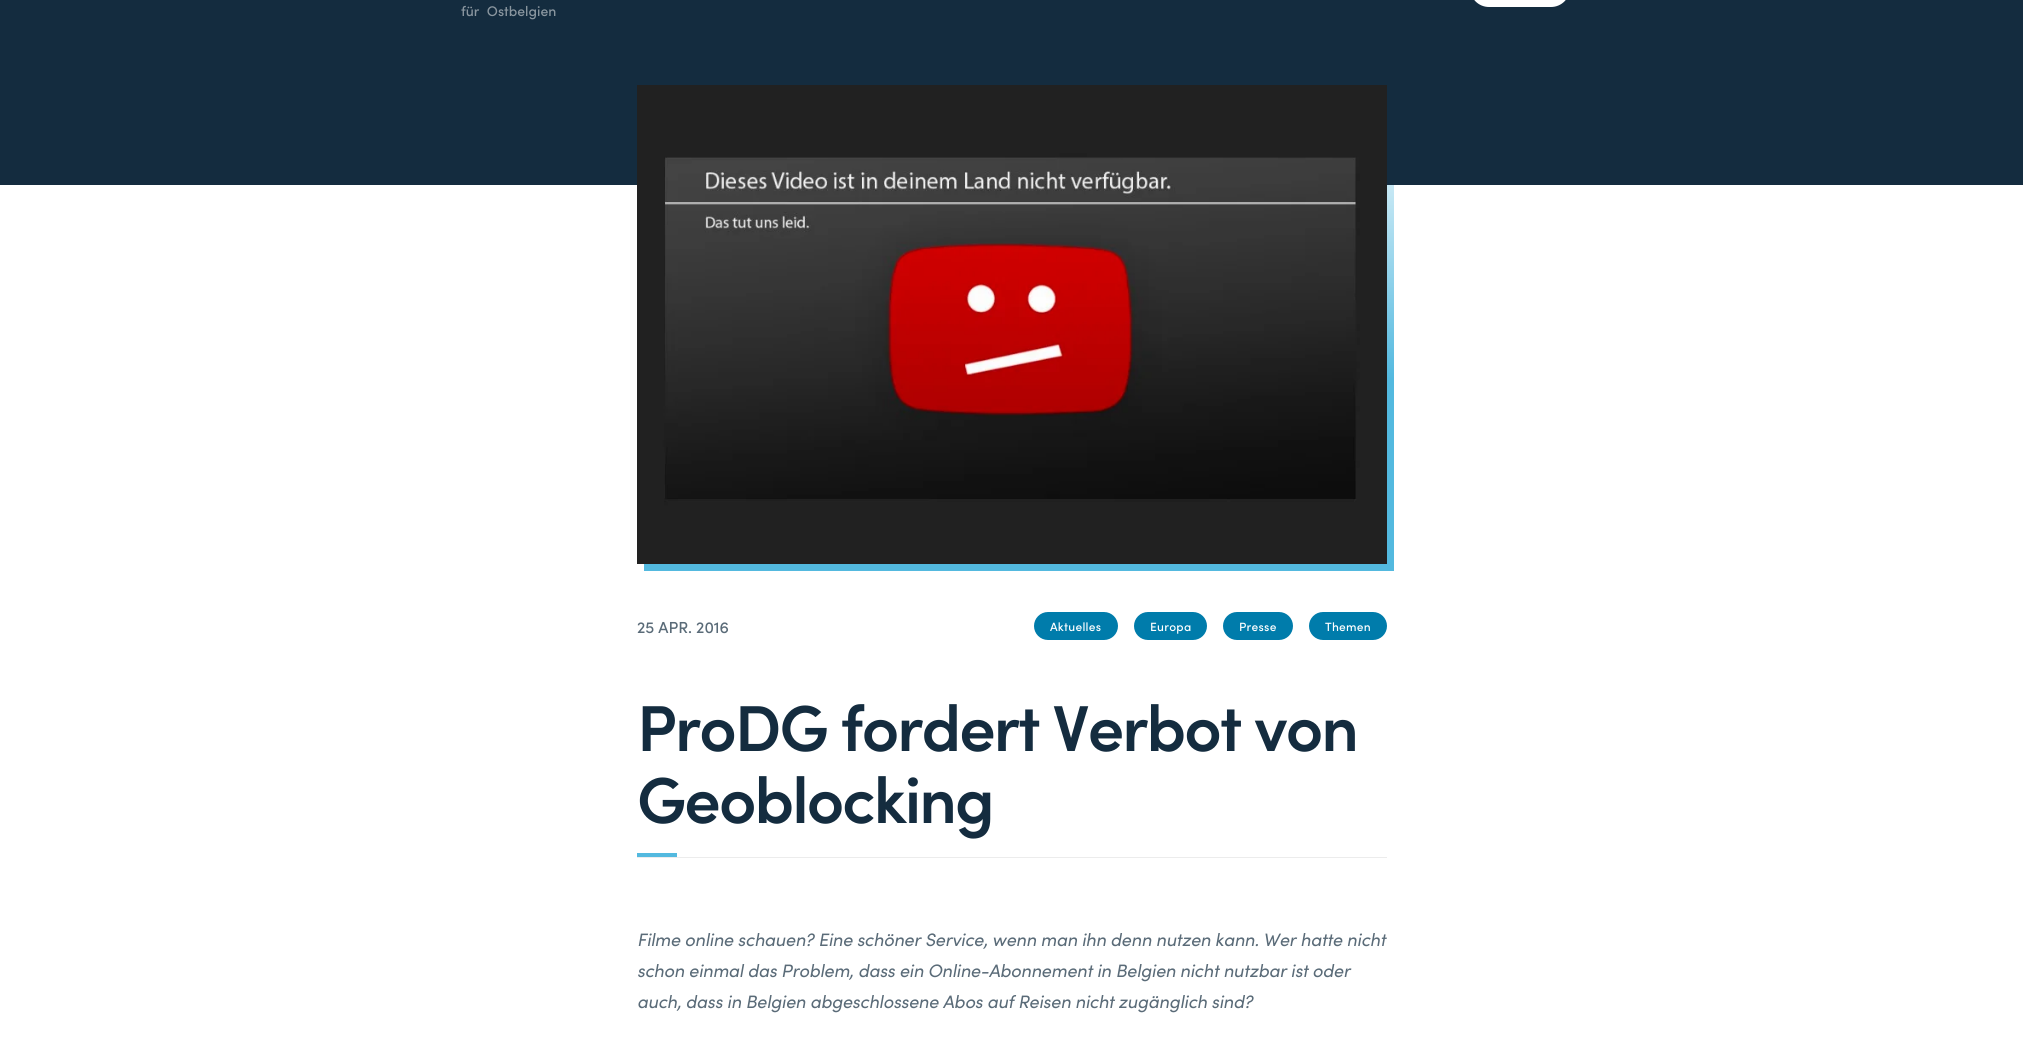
#include <cairo.h>
#include <math.h>
#include <stddef.h>

typedef struct { double x, y; const char *s; } line_t;

static void ink(cairo_t *ctx, unsigned color) {
    cairo_set_source_rgb(ctx, (color >> 16) / 255.0, (color >> 8 & 255) / 255.0, (color & 255) / 255.0);
}

static void write_spaced(cairo_t *ctx, double x, double y, const char *s, double letter, double word) {
    cairo_move_to(ctx, x, y);
    while (*s) {
        char ch[5] = {0};
        int n = 0;
        do ch[n++] = *s++; while ((*s & 0xC0) == 0x80);
        cairo_show_text(ctx, ch);
        cairo_rel_move_to(ctx, letter + word * (*ch == ' '), 0);
    }
}

static void round_path(cairo_t *ctx, double x, double y, double w, double h, double r) {
    cairo_new_sub_path(ctx);
    cairo_arc(ctx, x + w - r, y + h - r, r, 0, M_PI / 2);
    cairo_arc(ctx, x + r, y + h - r, r, M_PI / 2, M_PI);
    cairo_arc(ctx, x + r, y + r, r, M_PI, 1.5 * M_PI);
    cairo_arc(ctx, x + w - r, y + r, r, 1.5 * M_PI, 2 * M_PI);
    cairo_close_path(ctx);
}

static void paste(cairo_t *ctx, const char *path, double x, double y, double w, double h) {
    cairo_surface_t *image = cairo_image_surface_create_from_png(path);
    cairo_save(ctx);
    cairo_set_source_surface(ctx, image, x, y);
    cairo_rectangle(ctx, x, y, w, h);
    cairo_fill(ctx);
    cairo_restore(ctx);
    cairo_surface_destroy(image);
}

int main(void) {
    cairo_surface_t *surface = cairo_image_surface_create(CAIRO_FORMAT_RGB24, 2023, 1053);
    cairo_t *ctx = cairo_create(surface);
    cairo_font_options_t *options = cairo_font_options_create();
    cairo_font_options_set_hint_metrics(options, CAIRO_HINT_METRICS_OFF);
    cairo_font_options_set_hint_style(options, CAIRO_HINT_STYLE_NONE);
    cairo_set_font_options(ctx, options);
    cairo_set_miter_limit(ctx, 4);
    cairo_pattern_t *gradient;
    ink(ctx, 0xFFFFFF);
    cairo_paint(ctx);
    ink(ctx, 0x142C3F);
    cairo_rectangle(ctx, 0, 0, 2023, 185);
    cairo_fill(ctx);
    ink(ctx, 0xFFFFFF);
    round_path(ctx, 1470, -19, 100, 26, 19);
    cairo_fill(ctx);
    cairo_select_font_face(ctx, "Sofia Medium", CAIRO_FONT_SLANT_NORMAL, CAIRO_FONT_WEIGHT_NORMAL);
    cairo_set_font_size(ctx, 14);
    ink(ctx, 0x8A969F);
    write_spaced(ctx, 461, 16, "für Ostbelgien", 0, 4);
    gradient = cairo_pattern_create_linear(1019, 571, 1019, 92);
    cairo_pattern_add_color_stop_rgba(gradient, 0.4, 0.325, 0.725, 0.875, 1);
    cairo_pattern_add_color_stop_rgba(gradient, 1, 1, 1, 1, 1);
    cairo_set_source(ctx, gradient);
    cairo_pattern_destroy(gradient);
    cairo_rectangle(ctx, 644, 185, 750, 386);
    cairo_fill(ctx);
    paste(ctx, "media/1.png", 637, 85, 750, 479);
    cairo_set_font_size(ctx, 16);
    ink(ctx, 0x5A6B78);
    cairo_move_to(ctx, 637, 633);
    cairo_show_text(ctx, "25 APR. 2016");
    ink(ctx, 0x007CAB);
    round_path(ctx, 1034, 612, 84, 28, 14);
    cairo_fill(ctx);
    cairo_set_font_size(ctx, 12);
    ink(ctx, 0xFFFFFF);
    write_spaced(ctx, 1050, 631, "Aktuelles", 0.25, 0);
    ink(ctx, 0x007CAB);
    round_path(ctx, 1134, 612, 73, 28, 14);
    cairo_fill(ctx);
    ink(ctx, 0xFFFFFF);
    write_spaced(ctx, 1150, 631, "Europa", 0.25, 0);
    ink(ctx, 0x007CAB);
    round_path(ctx, 1223, 612, 70, 28, 14);
    cairo_fill(ctx);
    ink(ctx, 0xFFFFFF);
    write_spaced(ctx, 1239, 631, "Presse", 0.25, 0);
    ink(ctx, 0x007CAB);
    round_path(ctx, 1309, 612, 78, 28, 14);
    cairo_fill(ctx);
    ink(ctx, 0xFFFFFF);
    write_spaced(ctx, 1325, 631, "Themen", 0.25, 0);
    ink(ctx, 0xECECEC);
    cairo_rectangle(ctx, 637, 857, 750, 1);
    cairo_fill(ctx);
    cairo_select_font_face(ctx, "Sofia SemiBold", CAIRO_FONT_SLANT_NORMAL, CAIRO_FONT_WEIGHT_NORMAL);
    cairo_set_font_size(ctx, 65);
    ink(ctx, 0x142C3F);
    write_spaced(ctx, 637, 751, "ProDG fordert Verbot von", -1.95, 0);
    write_spaced(ctx, 637, 823, "Geoblocking", -1.95, 0);
    ink(ctx, 0x53B9DF);
    cairo_rectangle(ctx, 637, 853, 40, 4);
    cairo_fill(ctx);
    cairo_select_font_face(ctx, "Sofia", CAIRO_FONT_SLANT_ITALIC, CAIRO_FONT_WEIGHT_NORMAL);
    cairo_set_font_size(ctx, 18);
    ink(ctx, 0x5A6B78);
    {
        static const line_t items[] = {
            {637, 946, "Filme online schauen? Eine schöner Service, wenn man ihn denn nutzen kann. Wer hatte nicht"},
            {637, 977, "schon einmal das Problem, dass ein Online-Abonnement in Belgien nicht nutzbar ist oder"},
            {637, 1008, "auch, dass in Belgien abgeschlossene Abos auf Reisen nicht zugänglich sind?"},
        };
        for (size_t i = 0; i < sizeof items / sizeof *items; i++) {
            write_spaced(ctx, items[i].x, items[i].y, items[i].s, -0.18, 0);
        }
    }
    cairo_surface_write_to_png(surface, "image.png");
    cairo_font_options_destroy(options);
    cairo_destroy(ctx);
    cairo_surface_destroy(surface);
    return 0;
}
